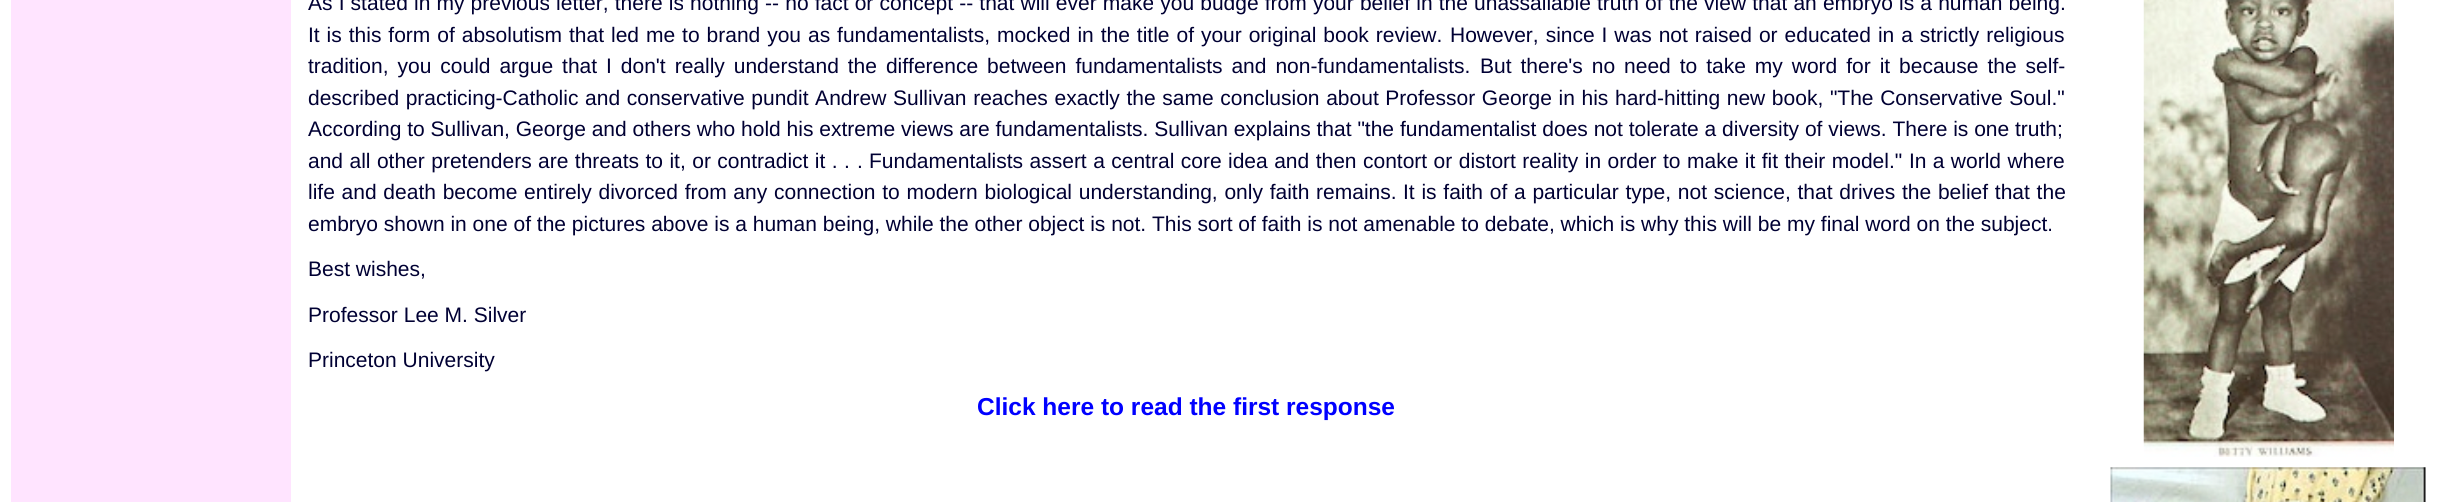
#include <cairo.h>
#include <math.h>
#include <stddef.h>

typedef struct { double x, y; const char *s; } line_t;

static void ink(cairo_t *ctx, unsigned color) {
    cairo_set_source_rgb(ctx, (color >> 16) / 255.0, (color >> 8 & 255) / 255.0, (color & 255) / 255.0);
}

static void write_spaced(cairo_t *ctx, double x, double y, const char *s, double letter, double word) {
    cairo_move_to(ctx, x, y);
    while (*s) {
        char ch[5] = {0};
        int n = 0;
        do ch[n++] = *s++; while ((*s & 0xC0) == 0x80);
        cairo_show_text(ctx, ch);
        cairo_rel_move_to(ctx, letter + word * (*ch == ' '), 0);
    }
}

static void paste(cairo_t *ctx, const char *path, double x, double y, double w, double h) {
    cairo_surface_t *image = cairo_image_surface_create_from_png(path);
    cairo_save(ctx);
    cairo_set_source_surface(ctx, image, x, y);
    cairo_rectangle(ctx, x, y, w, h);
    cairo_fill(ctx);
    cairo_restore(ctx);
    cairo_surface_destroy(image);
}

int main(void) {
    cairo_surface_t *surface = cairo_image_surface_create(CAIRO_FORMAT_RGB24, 2463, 502);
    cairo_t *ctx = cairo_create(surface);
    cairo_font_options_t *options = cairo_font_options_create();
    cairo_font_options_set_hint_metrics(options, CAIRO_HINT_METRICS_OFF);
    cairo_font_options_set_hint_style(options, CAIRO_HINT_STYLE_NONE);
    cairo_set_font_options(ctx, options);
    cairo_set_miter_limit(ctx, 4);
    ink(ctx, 0xFFFFFF);
    cairo_paint(ctx);
    ink(ctx, 0xFFE4FF);
    cairo_rectangle(ctx, 11, 0, 280, 502);
    cairo_fill(ctx);
    cairo_select_font_face(ctx, "Liberation Sans", CAIRO_FONT_SLANT_NORMAL, CAIRO_FONT_WEIGHT_NORMAL);
    cairo_set_font_size(ctx, 21);
    ink(ctx, 0x000033);
    write_spaced(ctx, 308, 10, "As I stated in my previous letter, there is nothing -- no fact or concept -- that will ever make you budge from your belief in the unassailable truth of the view that an embryo is a human being.", 0, 0.3);
    write_spaced(ctx, 308, 42, "It is this form of absolutism that led me to brand you as fundamentalists, mocked in the title of your original book review.", 0, 1.1);
    write_spaced(ctx, 1450, 42, "However, since I was not raised or educated in a strictly religious", 0, 1.1);
    write_spaced(ctx, 308, 73, "tradition, you could argue that I don't really understand the difference between fundamentalists and non-fundamentalists.", 0, 3.1);
    write_spaced(ctx, 1480, 73, "But there's no need to take my word for it because the self-", 0, 3.1);
    write_spaced(ctx, 308, 105, "described practicing-Catholic and conservative pundit Andrew Sullivan reaches exactly the same conclusion about Professor George in his hard-hitting new book, \"The Conservative Soul.\"", 0, 0.8);
    cairo_move_to(ctx, 308, 136);
    cairo_show_text(ctx, "According to Sullivan, George and others who hold his extreme views are fundamentalists. Sullivan explains that \"the fundamentalist does not tolerate a diversity of views. There is one truth;");
    write_spaced(ctx, 308, 168, "and all other pretenders are threats to it, or contradict it .", 0, 0.6);
    cairo_move_to(ctx, 844, 168);
    cairo_show_text(ctx, ".");
    cairo_move_to(ctx, 857, 168);
    cairo_show_text(ctx, ".");
    write_spaced(ctx, 869, 168, "Fundamentalists assert a central core idea and then contort or distort reality in order to make it fit their model.\"", 0, 0.6);
    write_spaced(ctx, 1909, 168, "In a world where", 0, 0.5);
    write_spaced(ctx, 308, 199, "life and death become entirely divorced from any connection to modern biological understanding, only faith remains.", 0, 0.9);
    write_spaced(ctx, 1403, 199, "It is faith of a particular type, not science, that drives the belief that the", 0, 0.9);
    {
        static const line_t items[] = {
            {308, 231, "embryo shown in one of the pictures above is a human being, while the other object is not. This sort of faith is not amenable to debate, which is why this will be my final word on the subject."},
            {308, 276, "Best wishes,"},
            {308, 322, "Professor Lee M. Silver"},
            {308, 367, "Princeton University"},
        };
        for (size_t i = 0; i < sizeof items / sizeof *items; i++) {
            cairo_move_to(ctx, items[i].x, items[i].y);
            cairo_show_text(ctx, items[i].s);
        }
    }
    cairo_select_font_face(ctx, "Liberation Sans", CAIRO_FONT_SLANT_NORMAL, CAIRO_FONT_WEIGHT_BOLD);
    cairo_set_font_size(ctx, 24.5);
    ink(ctx, 0x0000FF);
    cairo_move_to(ctx, 977, 415);
    cairo_show_text(ctx, "Click here to read the first response");
    paste(ctx, "media/1.png", 2143, 0, 251, 457);
    paste(ctx, "media/2.png", 2110, 467, 316, 35);
    cairo_surface_write_to_png(surface, "image.png");
    cairo_font_options_destroy(options);
    cairo_destroy(ctx);
    cairo_surface_destroy(surface);
    return 0;
}
